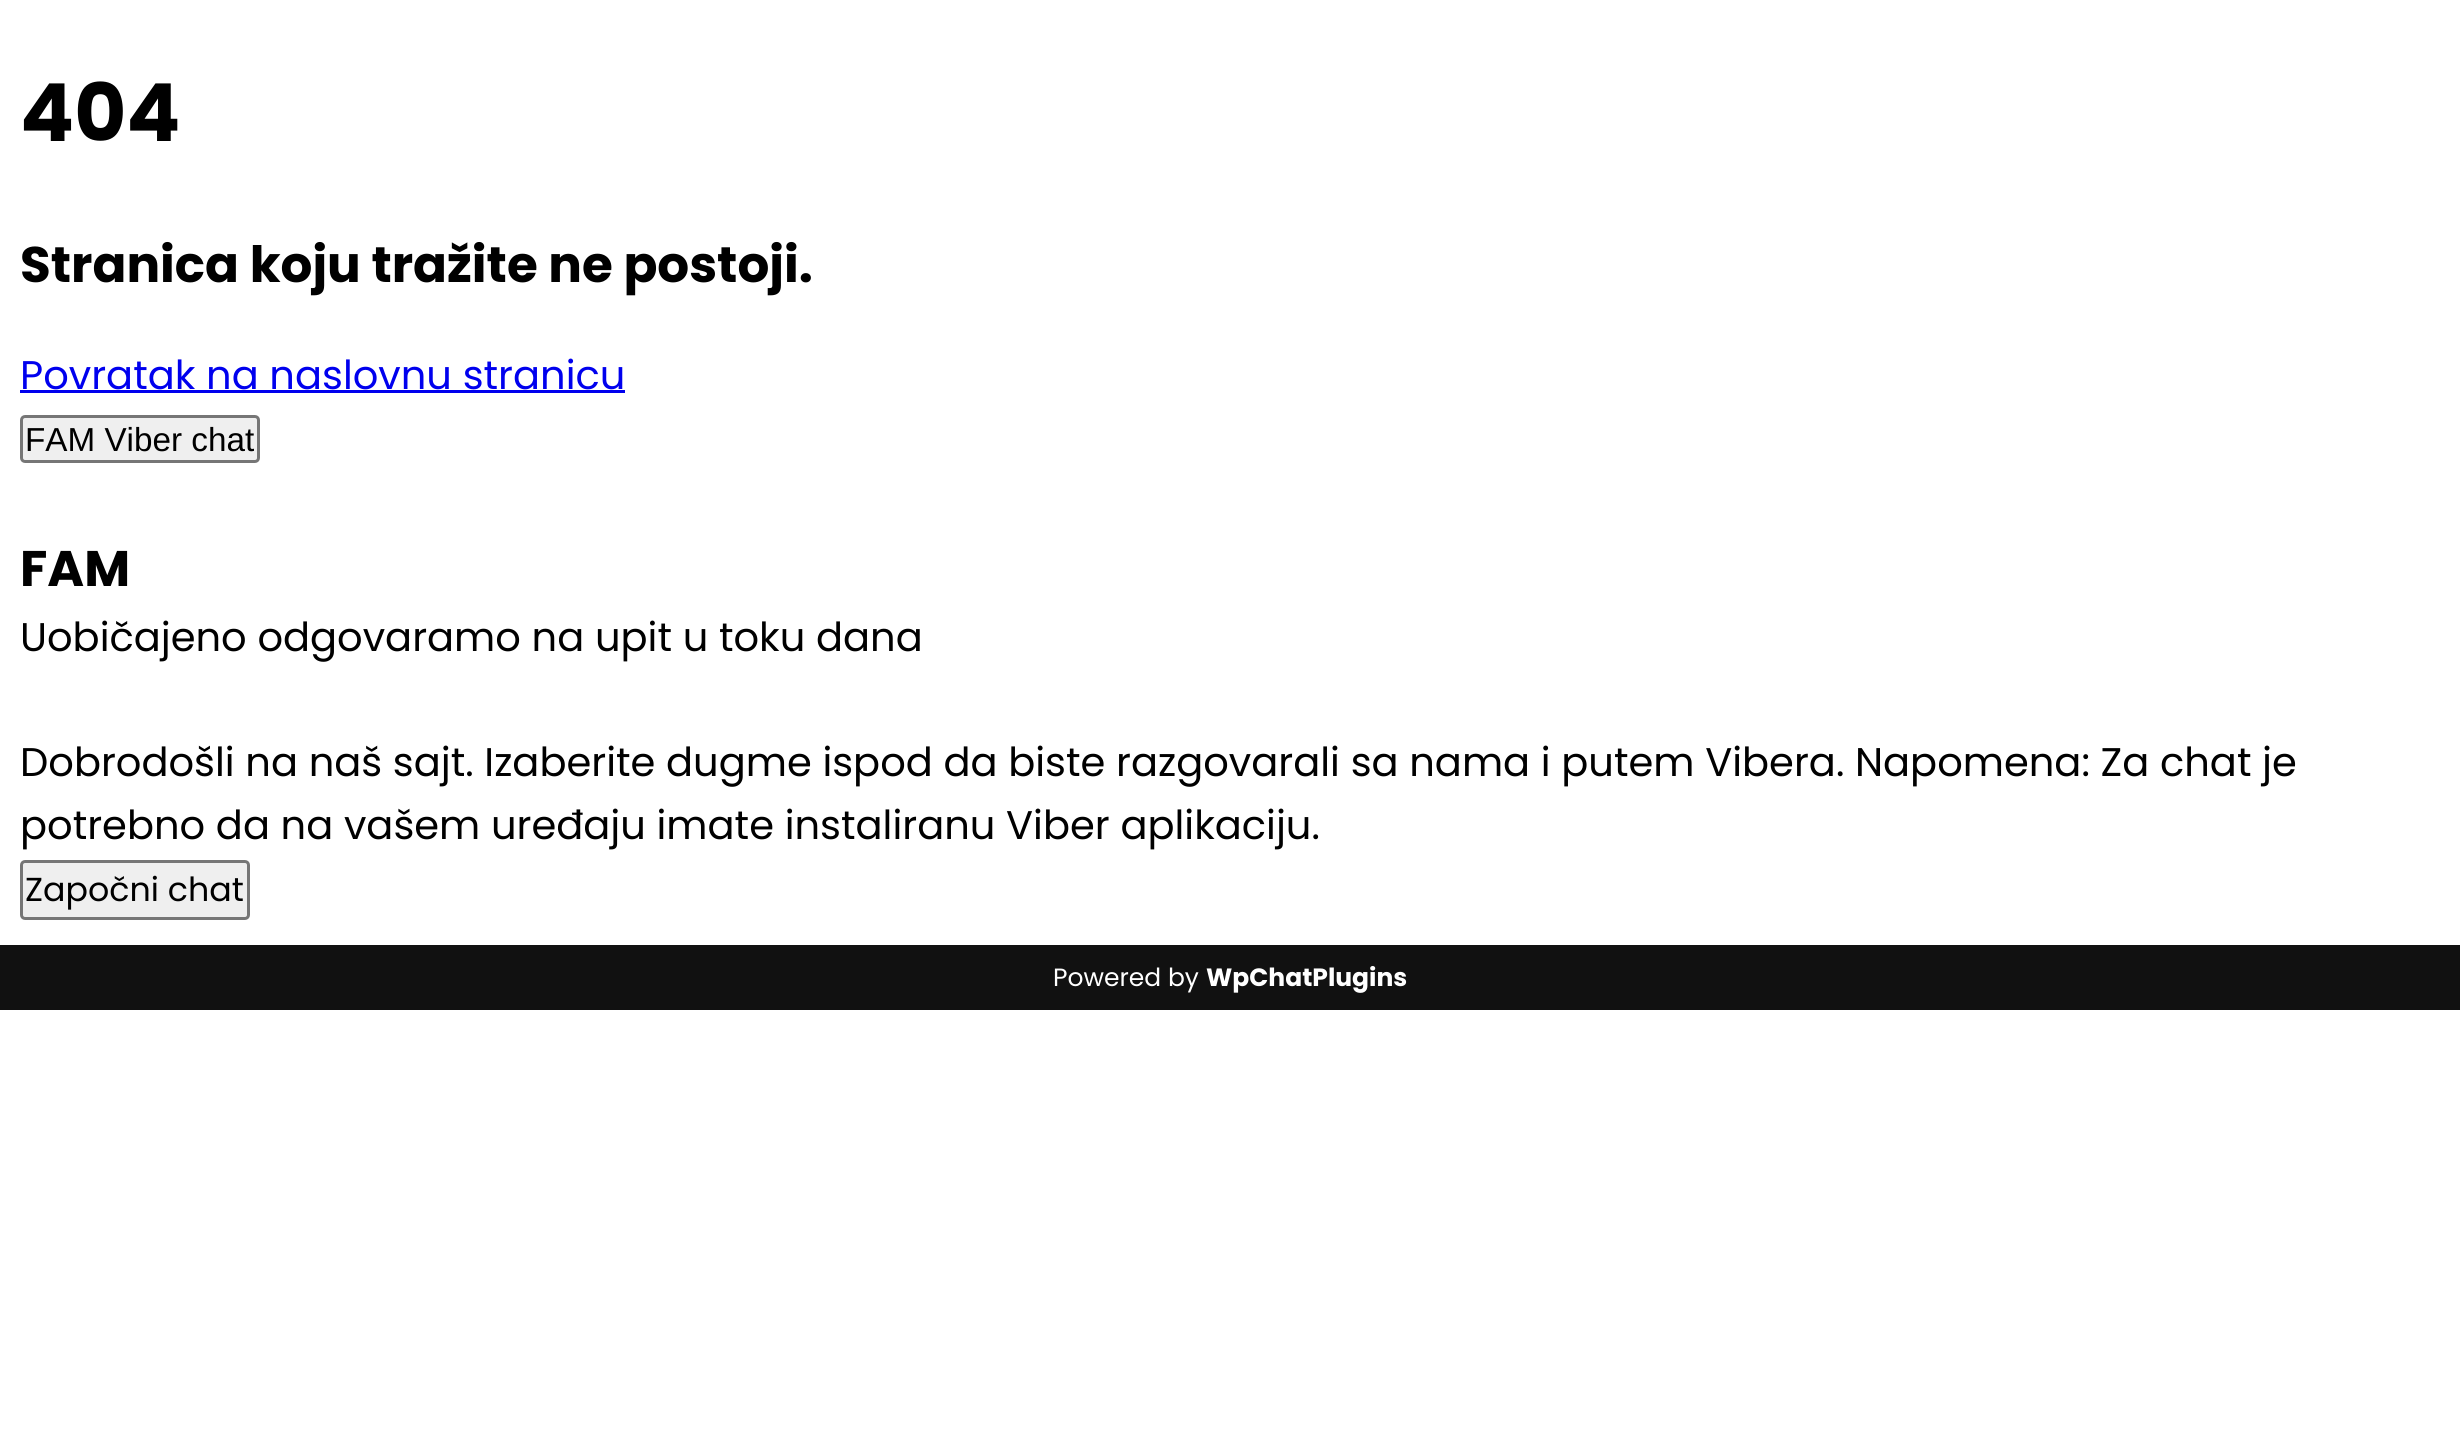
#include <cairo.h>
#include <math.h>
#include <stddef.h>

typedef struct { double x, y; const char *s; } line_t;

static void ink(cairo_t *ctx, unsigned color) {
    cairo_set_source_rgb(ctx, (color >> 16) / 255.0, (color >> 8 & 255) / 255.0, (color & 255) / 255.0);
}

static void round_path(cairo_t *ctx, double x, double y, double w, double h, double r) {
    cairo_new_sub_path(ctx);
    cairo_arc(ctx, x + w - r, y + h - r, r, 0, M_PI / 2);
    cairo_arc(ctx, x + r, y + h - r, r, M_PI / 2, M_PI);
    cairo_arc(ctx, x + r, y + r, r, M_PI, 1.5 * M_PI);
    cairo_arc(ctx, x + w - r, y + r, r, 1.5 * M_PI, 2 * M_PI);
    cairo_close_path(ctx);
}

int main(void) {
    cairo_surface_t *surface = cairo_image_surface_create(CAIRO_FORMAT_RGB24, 2460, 1431);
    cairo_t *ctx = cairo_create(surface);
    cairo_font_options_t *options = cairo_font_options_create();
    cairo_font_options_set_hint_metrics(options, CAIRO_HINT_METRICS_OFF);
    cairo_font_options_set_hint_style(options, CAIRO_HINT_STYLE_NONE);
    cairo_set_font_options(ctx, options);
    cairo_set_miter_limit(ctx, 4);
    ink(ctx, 0xFFFFFF);
    cairo_paint(ctx);
    cairo_select_font_face(ctx, "Poppins", CAIRO_FONT_SLANT_NORMAL, CAIRO_FONT_WEIGHT_BOLD);
    cairo_set_font_size(ctx, 80);
    ink(ctx, 0x000000);
    cairo_move_to(ctx, 20, 141);
    cairo_show_text(ctx, "404");
    cairo_set_font_size(ctx, 50);
    cairo_move_to(ctx, 20, 282);
    cairo_show_text(ctx, "Stranica koju tražite ne postoji.");
    cairo_select_font_face(ctx, "Poppins", CAIRO_FONT_SLANT_NORMAL, CAIRO_FONT_WEIGHT_NORMAL);
    cairo_set_font_size(ctx, 40);
    ink(ctx, 0x0000EE);
    cairo_move_to(ctx, 20, 389);
    cairo_show_text(ctx, "Povratak na naslovnu stranicu");
    cairo_rectangle(ctx, 20, 390, 605, 3);
    cairo_fill(ctx);
    ink(ctx, 0xEFEFEF);
    round_path(ctx, 21.5, 416.5, 237, 45, 3.5);
    cairo_fill_preserve(ctx);
    ink(ctx, 0x767676);
    cairo_set_line_width(ctx, 3);
    cairo_stroke(ctx);
    cairo_select_font_face(ctx, "Liberation Sans", CAIRO_FONT_SLANT_NORMAL, CAIRO_FONT_WEIGHT_NORMAL);
    cairo_set_font_size(ctx, 33.25);
    ink(ctx, 0x000000);
    cairo_move_to(ctx, 25, 451);
    cairo_show_text(ctx, "FAM Viber chat");
    cairo_select_font_face(ctx, "Poppins", CAIRO_FONT_SLANT_NORMAL, CAIRO_FONT_WEIGHT_BOLD);
    cairo_set_font_size(ctx, 50);
    cairo_move_to(ctx, 20, 586);
    cairo_show_text(ctx, "FAM");
    cairo_select_font_face(ctx, "Poppins", CAIRO_FONT_SLANT_NORMAL, CAIRO_FONT_WEIGHT_NORMAL);
    cairo_set_font_size(ctx, 40);
    {
        static const line_t items[] = {
            {20, 651, "Uobičajeno odgovaramo na upit u toku dana"},
            {20, 776, "Dobrodošli na naš sajt. Izaberite dugme ispod da biste razgovarali sa nama i putem Vibera. Napomena: Za chat je"},
            {20, 839, "potrebno da na vašem uređaju imate instaliranu Viber aplikaciju."},
        };
        for (size_t i = 0; i < sizeof items / sizeof *items; i++) {
            cairo_move_to(ctx, items[i].x, items[i].y);
            cairo_show_text(ctx, items[i].s);
        }
    }
    ink(ctx, 0xEFEFEF);
    round_path(ctx, 21.5, 861.5, 227, 57, 3.5);
    cairo_fill_preserve(ctx);
    ink(ctx, 0x767676);
    cairo_stroke(ctx);
    cairo_set_font_size(ctx, 33.25);
    ink(ctx, 0x000000);
    cairo_move_to(ctx, 25, 901);
    cairo_show_text(ctx, "Započni chat");
    ink(ctx, 0x111111);
    cairo_rectangle(ctx, 0, 945, 2460, 65);
    cairo_fill(ctx);
    cairo_set_font_size(ctx, 25);
    ink(ctx, 0xFFFFFF);
    cairo_move_to(ctx, 1053, 986);
    cairo_show_text(ctx, "Powered by");
    cairo_select_font_face(ctx, "Poppins", CAIRO_FONT_SLANT_NORMAL, CAIRO_FONT_WEIGHT_BOLD);
    cairo_move_to(ctx, 1206, 986);
    cairo_show_text(ctx, "WpChatPlugins");
    cairo_surface_write_to_png(surface, "image.png");
    cairo_font_options_destroy(options);
    cairo_destroy(ctx);
    cairo_surface_destroy(surface);
    return 0;
}
